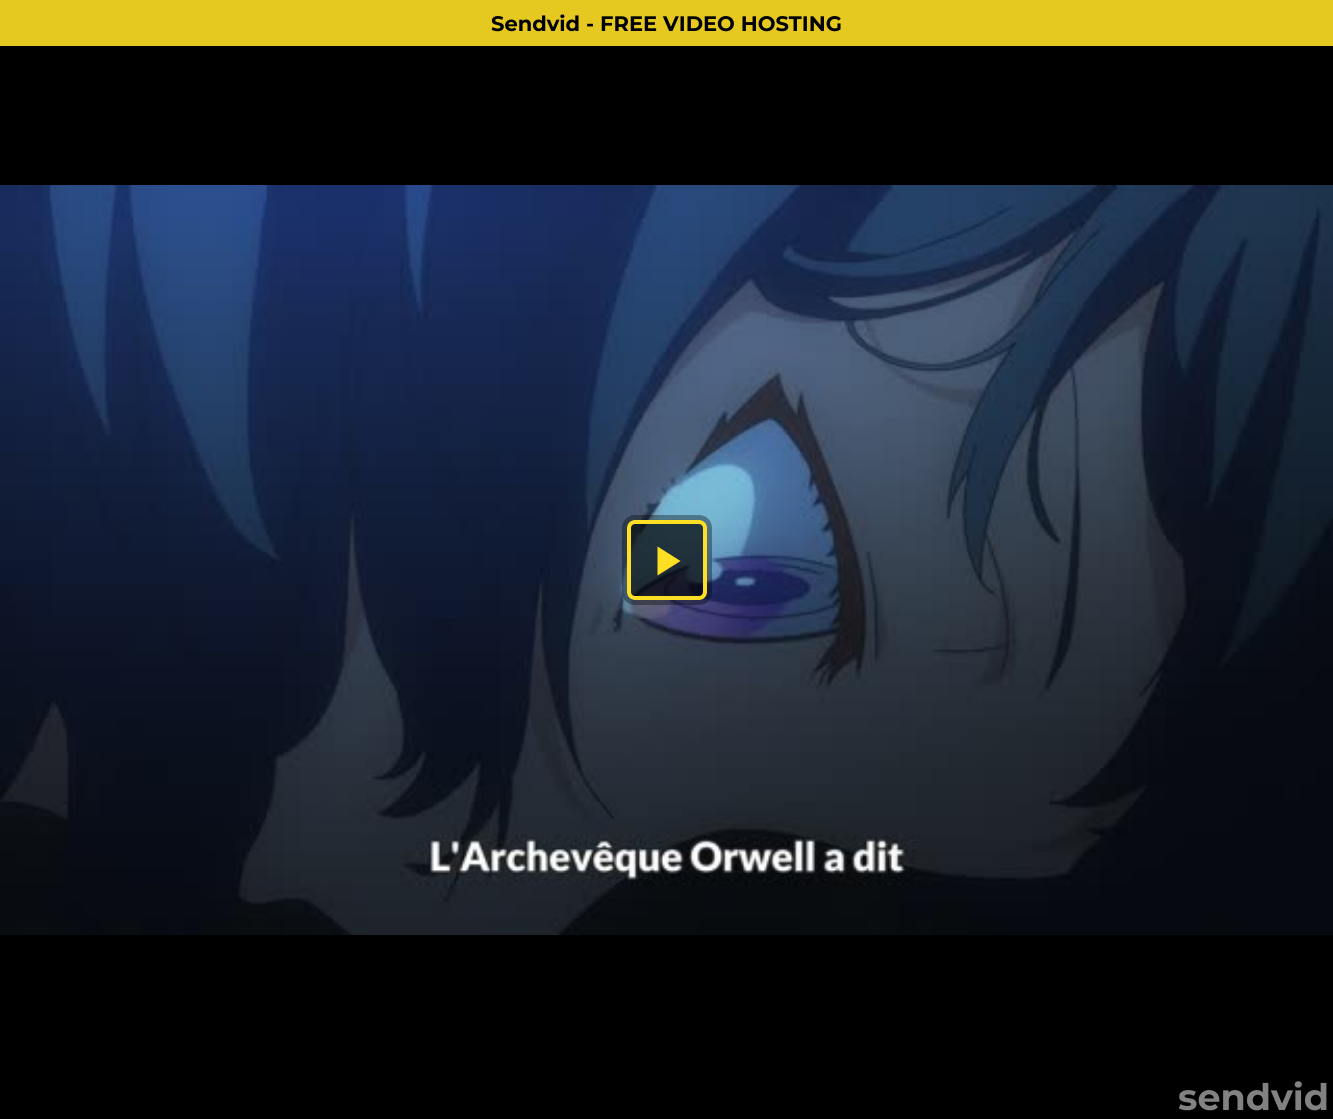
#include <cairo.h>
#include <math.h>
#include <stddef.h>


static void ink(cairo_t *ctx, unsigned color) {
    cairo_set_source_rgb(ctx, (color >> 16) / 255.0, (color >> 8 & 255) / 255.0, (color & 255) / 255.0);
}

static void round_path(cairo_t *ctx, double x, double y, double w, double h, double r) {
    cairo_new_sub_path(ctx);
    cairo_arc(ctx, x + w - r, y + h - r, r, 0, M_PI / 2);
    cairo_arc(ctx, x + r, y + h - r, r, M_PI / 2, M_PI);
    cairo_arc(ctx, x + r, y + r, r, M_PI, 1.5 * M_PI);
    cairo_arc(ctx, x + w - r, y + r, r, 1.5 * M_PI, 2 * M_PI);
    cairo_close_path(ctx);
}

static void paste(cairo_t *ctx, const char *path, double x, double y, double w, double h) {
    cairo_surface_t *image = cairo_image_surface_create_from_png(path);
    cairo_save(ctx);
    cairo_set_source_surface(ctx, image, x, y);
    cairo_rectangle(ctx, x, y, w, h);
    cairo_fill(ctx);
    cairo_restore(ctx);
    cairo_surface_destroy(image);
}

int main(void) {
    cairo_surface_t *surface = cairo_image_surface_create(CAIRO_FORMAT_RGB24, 1333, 1119);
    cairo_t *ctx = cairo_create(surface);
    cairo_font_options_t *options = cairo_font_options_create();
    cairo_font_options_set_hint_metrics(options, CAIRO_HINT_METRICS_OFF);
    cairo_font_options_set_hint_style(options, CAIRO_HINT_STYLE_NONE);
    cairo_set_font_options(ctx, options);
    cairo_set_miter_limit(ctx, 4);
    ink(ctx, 0x000000);
    cairo_paint(ctx);
    ink(ctx, 0xE5C820);
    cairo_rectangle(ctx, 0, 0, 1333, 46);
    cairo_fill(ctx);
    cairo_select_font_face(ctx, "Montserrat", CAIRO_FONT_SLANT_NORMAL, CAIRO_FONT_WEIGHT_BOLD);
    cairo_set_font_size(ctx, 21);
    ink(ctx, 0x000000);
    cairo_move_to(ctx, 491, 31);
    cairo_show_text(ctx, "Sendvid - FREE VIDEO HOSTING");
    paste(ctx, "media/1.png", 0, 185, 1333, 750);
    cairo_set_source_rgba(ctx, 0, 0, 0, 0.7);
    round_path(ctx, 629, 522, 76, 76, 6);
    cairo_fill_preserve(ctx);
    ink(ctx, 0xFFDF24);
    cairo_set_line_width(ctx, 4);
    cairo_stroke(ctx);
    round_path(ctx, 624.5, 517.5, 85, 85, 10.5);
    cairo_set_source_rgba(ctx, 0, 0, 0, 0.35);
    cairo_set_line_width(ctx, 5);
    cairo_stroke(ctx);
    ink(ctx, 0xFFDF24);
    cairo_new_path(ctx);
    cairo_move_to(ctx, 657.5, 546.5);
    cairo_line_to(ctx, 657.5, 575.5);
    cairo_line_to(ctx, 680.5, 561);
    cairo_close_path(ctx);
    cairo_fill(ctx);
    cairo_set_font_size(ctx, 36.5);
    ink(ctx, 0x828282);
    cairo_move_to(ctx, 1178, 1110);
    cairo_show_text(ctx, "sendvid");
    cairo_surface_write_to_png(surface, "image.png");
    cairo_font_options_destroy(options);
    cairo_destroy(ctx);
    cairo_surface_destroy(surface);
    return 0;
}
